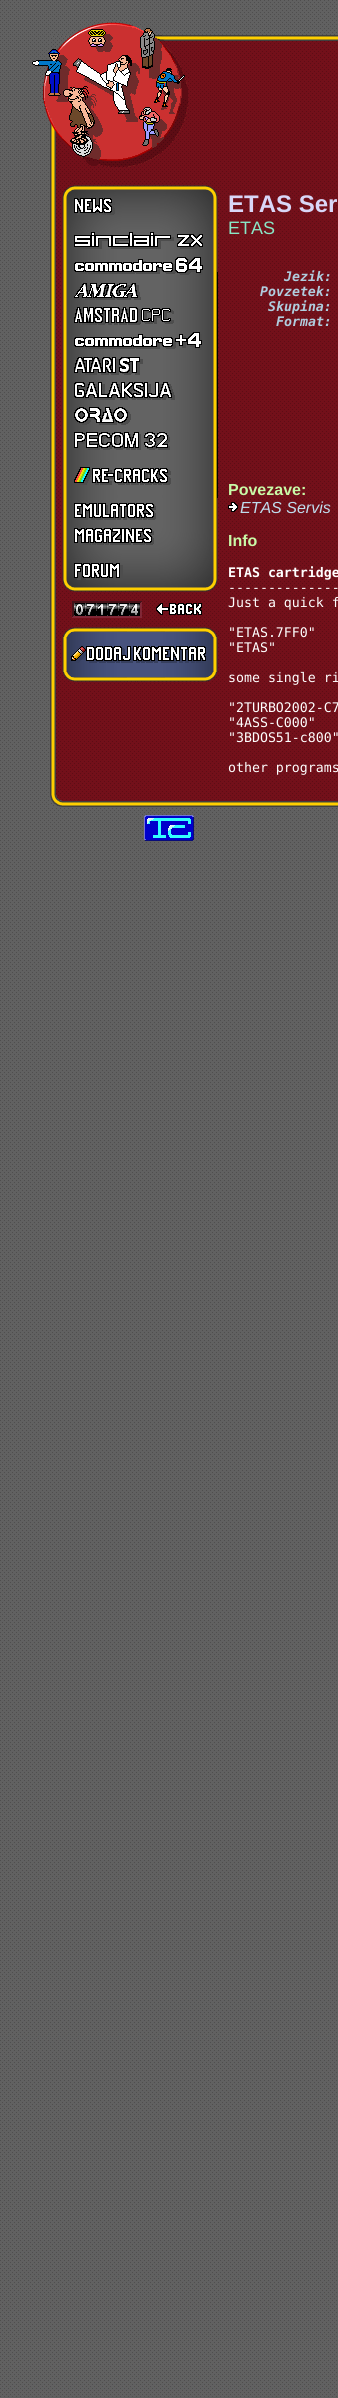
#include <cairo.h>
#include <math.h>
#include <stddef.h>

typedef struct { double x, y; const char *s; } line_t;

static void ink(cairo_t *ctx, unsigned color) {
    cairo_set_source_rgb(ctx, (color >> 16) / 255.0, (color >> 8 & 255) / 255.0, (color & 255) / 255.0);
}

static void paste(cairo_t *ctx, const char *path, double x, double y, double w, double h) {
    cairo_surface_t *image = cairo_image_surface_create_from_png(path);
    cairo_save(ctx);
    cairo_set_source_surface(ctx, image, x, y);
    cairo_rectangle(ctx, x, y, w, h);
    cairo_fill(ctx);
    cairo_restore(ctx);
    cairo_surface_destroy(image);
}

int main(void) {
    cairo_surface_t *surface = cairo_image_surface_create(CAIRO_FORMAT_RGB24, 338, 2398);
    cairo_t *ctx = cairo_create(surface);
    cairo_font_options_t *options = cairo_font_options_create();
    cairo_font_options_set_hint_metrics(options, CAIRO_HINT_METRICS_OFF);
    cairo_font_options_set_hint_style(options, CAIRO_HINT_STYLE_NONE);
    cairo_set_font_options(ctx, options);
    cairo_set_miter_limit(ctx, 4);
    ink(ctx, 0x616161);
    cairo_paint(ctx);
    paste(ctx, "media/1.png", 0, 0, 337, 2397);
    paste(ctx, "media/2.png", 73, 22, 82, 13);
    paste(ctx, "media/3.png", 32, 52, 18, 70);
    paste(ctx, "media/4.png", 56, 41, 282, 760);
    paste(ctx, "media/5.png", 50, 35, 12, 12);
    paste(ctx, "media/6.png", 166, 35, 172, 6);
    paste(ctx, "media/7.png", 62, 35, 104, 12);
    paste(ctx, "media/8.png", 50, 139, 6, 656);
    paste(ctx, "media/9.png", 50, 47, 12, 92);
    paste(ctx, "media/10.png", 62, 47, 126, 120);
    paste(ctx, "media/11.png", 62, 185, 156, 407);
    paste(ctx, "media/12.png", 74, 198, 41, 17);
    paste(ctx, "media/13.png", 74, 232, 129, 17);
    paste(ctx, "media/14.png", 74, 257, 129, 18);
    paste(ctx, "media/15.png", 74, 283, 67, 17);
    paste(ctx, "media/16.png", 74, 307, 100, 18);
    paste(ctx, "media/17.png", 74, 332, 128, 18);
    paste(ctx, "media/18.png", 74, 357, 69, 18);
    paste(ctx, "media/19.png", 74, 382, 101, 18);
    paste(ctx, "media/20.png", 74, 407, 57, 18);
    paste(ctx, "media/21.png", 74, 432, 96, 18);
    paste(ctx, "media/22.png", 74, 467, 97, 18);
    paste(ctx, "media/23.png", 74, 503, 82, 17);
    paste(ctx, "media/24.png", 74, 528, 80, 17);
    paste(ctx, "media/25.png", 74, 563, 49, 17);
    paste(ctx, "media/26.png", 72, 601, 2, 17);
    paste(ctx, "media/27.png", 74, 601, 11, 17);
    paste(ctx, "media/28.png", 85, 601, 11, 17);
    paste(ctx, "media/29.png", 96, 601, 11, 17);
    paste(ctx, "media/28.png", 107, 601, 11, 17);
    paste(ctx, "media/28.png", 118, 601, 11, 17);
    paste(ctx, "media/30.png", 129, 601, 11, 17);
    paste(ctx, "media/31.png", 140, 601, 2, 17);
    paste(ctx, "media/32.png", 156, 603, 46, 12);
    paste(ctx, "media/33.png", 63, 627, 154, 10);
    paste(ctx, "media/34.png", 62, 637, 156, 35);
    paste(ctx, "media/35.png", 71, 646, 135, 17);
    paste(ctx, "media/36.png", 63, 672, 154, 10);
    cairo_select_font_face(ctx, "Liberation Sans", CAIRO_FONT_SLANT_NORMAL, CAIRO_FONT_WEIGHT_BOLD);
    cairo_set_font_size(ctx, 24);
    ink(ctx, 0xD9D7F7);
    cairo_move_to(ctx, 228, 212);
    cairo_show_text(ctx, "ETAS Ser");
    cairo_select_font_face(ctx, "Liberation Sans", CAIRO_FONT_SLANT_NORMAL, CAIRO_FONT_WEIGHT_NORMAL);
    cairo_set_font_size(ctx, 18);
    ink(ctx, 0x89E7C7);
    cairo_move_to(ctx, 228, 234);
    cairo_show_text(ctx, "ETAS");
    cairo_select_font_face(ctx, "DejaVu Sans Mono", CAIRO_FONT_SLANT_ITALIC, CAIRO_FONT_WEIGHT_BOLD);
    cairo_set_font_size(ctx, 13.25);
    ink(ctx, 0xB0CDDE);
    {
        static const line_t items[] = {
            {284, 281, "Jezik:"},
            {260, 296, "Povzetek:"},
            {268, 311, "Skupina:"},
            {276, 326, "Format:"},
        };
        for (size_t i = 0; i < sizeof items / sizeof *items; i++) {
            cairo_move_to(ctx, items[i].x, items[i].y);
            cairo_show_text(ctx, items[i].s);
        }
    }
    cairo_select_font_face(ctx, "Liberation Sans", CAIRO_FONT_SLANT_NORMAL, CAIRO_FONT_WEIGHT_BOLD);
    cairo_set_font_size(ctx, 16);
    ink(ctx, 0xC9FAA7);
    cairo_move_to(ctx, 228, 495);
    cairo_show_text(ctx, "Povezave:");
    paste(ctx, "media/37.png", 228, 502, 10, 10);
    cairo_select_font_face(ctx, "Liberation Sans", CAIRO_FONT_SLANT_ITALIC, CAIRO_FONT_WEIGHT_NORMAL);
    ink(ctx, 0xC0DDEE);
    cairo_move_to(ctx, 240, 513);
    cairo_show_text(ctx, "ETAS Servis");
    cairo_select_font_face(ctx, "Liberation Sans", CAIRO_FONT_SLANT_NORMAL, CAIRO_FONT_WEIGHT_BOLD);
    ink(ctx, 0xC9FAA7);
    cairo_move_to(ctx, 228, 546);
    cairo_show_text(ctx, "Info");
    cairo_select_font_face(ctx, "DejaVu Sans Mono", CAIRO_FONT_SLANT_NORMAL, CAIRO_FONT_WEIGHT_BOLD);
    cairo_set_font_size(ctx, 13.25);
    ink(ctx, 0xFFFFFF);
    cairo_move_to(ctx, 228, 577);
    cairo_show_text(ctx, "ETAS cartridge");
    cairo_select_font_face(ctx, "DejaVu Sans Mono", CAIRO_FONT_SLANT_NORMAL, CAIRO_FONT_WEIGHT_NORMAL);
    {
        static const line_t items[] = {
            {228, 592, "--------------"},
            {228, 607, "Just a quick f"},
            {228, 637, "\"ETAS.7FF0\""},
            {228, 652, "\"ETAS\""},
            {228, 682, "some single ri"},
            {228, 712, "\"2TURBO2002-C7"},
            {228, 727, "\"4ASS-C000\""},
            {228, 742, "\"3BDOS51-c800\""},
            {228, 772, "other programs"},
        };
        for (size_t i = 0; i < sizeof items / sizeof *items; i++) {
            cairo_move_to(ctx, items[i].x, items[i].y);
            cairo_show_text(ctx, items[i].s);
        }
    }
    paste(ctx, "media/38.png", 50, 795, 12, 12);
    paste(ctx, "media/39.png", 62, 801, 276, 6);
    paste(ctx, "media/40.png", 144, 815, 50, 26);
    cairo_surface_write_to_png(surface, "image.png");
    cairo_font_options_destroy(options);
    cairo_destroy(ctx);
    cairo_surface_destroy(surface);
    return 0;
}
